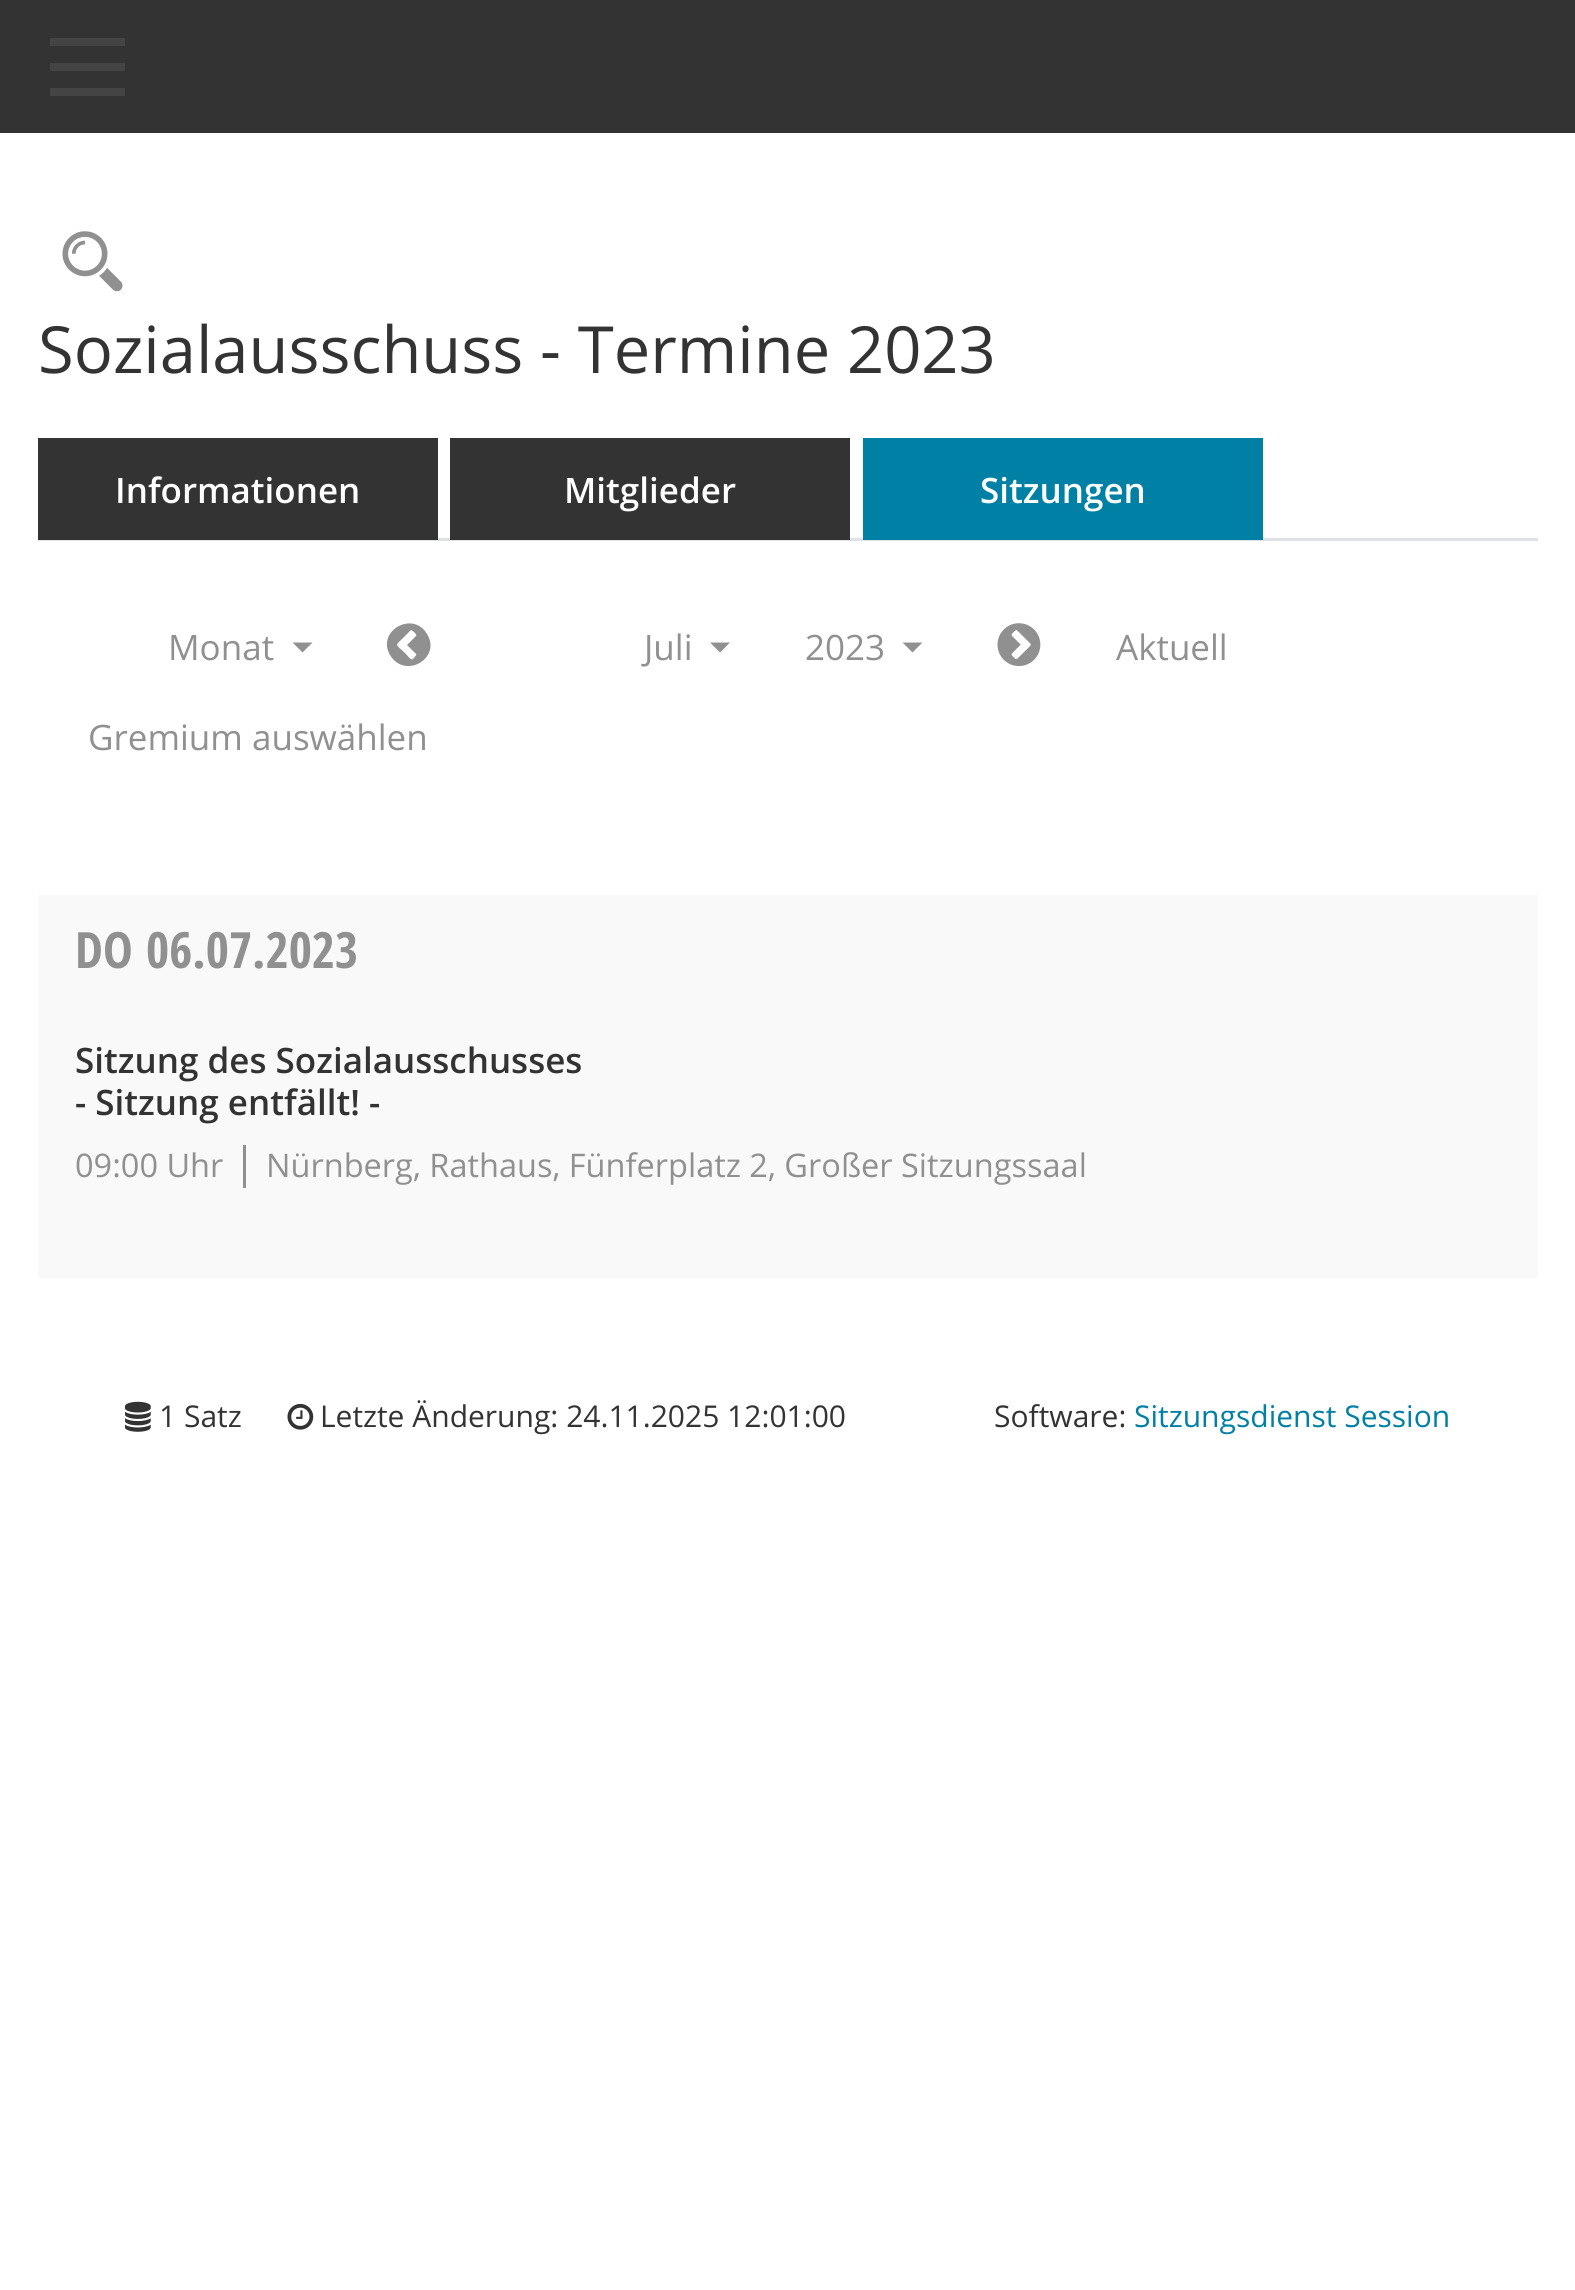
#include <cairo.h>
#include <math.h>
#include <stddef.h>

typedef struct { double x, y, w, h; unsigned color; } box_t;

static void ink(cairo_t *ctx, unsigned color) {
    cairo_set_source_rgb(ctx, (color >> 16) / 255.0, (color >> 8 & 255) / 255.0, (color & 255) / 255.0);
}

static void paste(cairo_t *ctx, const char *path, double x, double y, double w, double h) {
    cairo_surface_t *image = cairo_image_surface_create_from_png(path);
    cairo_save(ctx);
    cairo_set_source_surface(ctx, image, x, y);
    cairo_rectangle(ctx, x, y, w, h);
    cairo_fill(ctx);
    cairo_restore(ctx);
    cairo_surface_destroy(image);
}

int main(void) {
    cairo_surface_t *surface = cairo_image_surface_create(CAIRO_FORMAT_RGB24, 1575, 2290);
    cairo_t *ctx = cairo_create(surface);
    cairo_font_options_t *options = cairo_font_options_create();
    cairo_font_options_set_hint_metrics(options, CAIRO_HINT_METRICS_OFF);
    cairo_font_options_set_hint_style(options, CAIRO_HINT_STYLE_NONE);
    cairo_set_font_options(ctx, options);
    cairo_set_miter_limit(ctx, 4);
    ink(ctx, 0xFFFFFF);
    cairo_paint(ctx);
    {
        static const box_t items[] = {
            {0, 0, 1575, 133, 0x333333},
            {50, 38, 75, 8, 0x444444},
            {50, 63, 75, 8, 0x444444},
            {50, 88, 75, 8, 0x444444},
        };
        for (size_t i = 0; i < sizeof items / sizeof *items; i++) {
            ink(ctx, items[i].color);
            cairo_rectangle(ctx, items[i].x, items[i].y, items[i].w, items[i].h);
            cairo_fill(ctx);
        }
    }
    paste(ctx, "media/1.png", 62, 231, 61, 61);
    cairo_select_font_face(ctx, "Open Sans", CAIRO_FONT_SLANT_NORMAL, CAIRO_FONT_WEIGHT_NORMAL);
    cairo_set_font_size(ctx, 65);
    ink(ctx, 0x333333);
    cairo_move_to(ctx, 38, 373);
    cairo_show_text(ctx, "Sozialausschuss - Termine 2023");
    ink(ctx, 0xDEE2E6);
    cairo_rectangle(ctx, 38, 538, 1500, 3);
    cairo_fill(ctx);
    ink(ctx, 0x333333);
    cairo_rectangle(ctx, 38, 438, 400, 102);
    cairo_fill(ctx);
    cairo_select_font_face(ctx, "Open Sans SemiBold", CAIRO_FONT_SLANT_NORMAL, CAIRO_FONT_WEIGHT_NORMAL);
    cairo_set_font_size(ctx, 35);
    ink(ctx, 0xFFFFFF);
    cairo_move_to(ctx, 115, 503);
    cairo_show_text(ctx, "Informationen");
    ink(ctx, 0x333333);
    cairo_rectangle(ctx, 450, 438, 400, 102);
    cairo_fill(ctx);
    ink(ctx, 0xFFFFFF);
    cairo_move_to(ctx, 564, 503);
    cairo_show_text(ctx, "Mitglieder");
    ink(ctx, 0x0080A5);
    cairo_rectangle(ctx, 863, 438, 400, 102);
    cairo_fill(ctx);
    ink(ctx, 0xFFFFFF);
    cairo_move_to(ctx, 980, 503);
    cairo_show_text(ctx, "Sitzungen");
    cairo_select_font_face(ctx, "Open Sans", CAIRO_FONT_SLANT_NORMAL, CAIRO_FONT_WEIGHT_NORMAL);
    ink(ctx, 0x909090);
    cairo_move_to(ctx, 168, 660);
    cairo_show_text(ctx, "Monat");
    cairo_new_path(ctx);
    cairo_move_to(ctx, 292.5, 642.5);
    cairo_line_to(ctx, 312.5, 642.5);
    cairo_line_to(ctx, 302.5, 652.5);
    cairo_close_path(ctx);
    cairo_fill(ctx);
    cairo_new_path(ctx);
    cairo_move_to(ctx, 413, 659);
    cairo_curve_to(ctx, 416, 655, 418, 655, 414, 652);
    cairo_line_to(ctx, 407, 645);
    cairo_line_to(ctx, 416, 636);
    cairo_curve_to(ctx, 417, 635, 415, 633, 414, 632);
    cairo_curve_to(ctx, 411, 629, 411, 630, 408, 633);
    cairo_line_to(ctx, 404, 637);
    cairo_curve_to(ctx, 394, 647, 395, 643, 406, 654);
    cairo_curve_to(ctx, 407, 655, 411, 661, 413, 659);
    cairo_close_path(ctx);
    cairo_move_to(ctx, 427, 634);
    cairo_curve_to(ctx, 442, 658, 405, 680, 390, 655);
    cairo_curve_to(ctx, 376, 631, 413, 610, 427, 634);
    cairo_close_path(ctx);
    cairo_fill(ctx);
    cairo_move_to(ctx, 644, 660);
    cairo_show_text(ctx, "Juli");
    cairo_new_path(ctx);
    cairo_move_to(ctx, 710, 642.5);
    cairo_line_to(ctx, 730, 642.5);
    cairo_line_to(ctx, 720, 652.5);
    cairo_close_path(ctx);
    cairo_fill(ctx);
    cairo_move_to(ctx, 805, 660);
    cairo_show_text(ctx, "2023");
    cairo_new_path(ctx);
    cairo_move_to(ctx, 902.5, 642.5);
    cairo_line_to(ctx, 922.5, 642.5);
    cairo_line_to(ctx, 912.5, 652.5);
    cairo_close_path(ctx);
    cairo_fill(ctx);
    paste(ctx, "media/2.png", 997, 623, 44, 44);
    cairo_move_to(ctx, 1116, 660);
    cairo_show_text(ctx, "Aktuell");
    cairo_move_to(ctx, 88, 750);
    cairo_show_text(ctx, "Gremium auswählen");
    ink(ctx, 0xF9F9F9);
    cairo_rectangle(ctx, 38, 895, 1500, 383);
    cairo_fill(ctx);
    cairo_select_font_face(ctx, "Open Sans Condensed", CAIRO_FONT_SLANT_NORMAL, CAIRO_FONT_WEIGHT_BOLD);
    cairo_set_font_size(ctx, 50);
    ink(ctx, 0x909090);
    cairo_move_to(ctx, 75, 968);
    cairo_show_text(ctx, "DO");
    cairo_move_to(ctx, 146, 968);
    cairo_show_text(ctx, "06.07.2023");
    cairo_select_font_face(ctx, "Open Sans SemiBold", CAIRO_FONT_SLANT_NORMAL, CAIRO_FONT_WEIGHT_NORMAL);
    cairo_set_font_size(ctx, 35);
    ink(ctx, 0x333333);
    cairo_move_to(ctx, 75, 1073);
    cairo_show_text(ctx, "Sitzung des Sozialausschusses");
    cairo_move_to(ctx, 75, 1115);
    cairo_show_text(ctx, "- Sitzung entfällt! -");
    cairo_select_font_face(ctx, "Open Sans", CAIRO_FONT_SLANT_NORMAL, CAIRO_FONT_WEIGHT_NORMAL);
    cairo_set_font_size(ctx, 32.5);
    ink(ctx, 0x909090);
    cairo_move_to(ctx, 75, 1177);
    cairo_show_text(ctx, "09:00 Uhr");
    cairo_rectangle(ctx, 243, 1145, 3, 43);
    cairo_fill(ctx);
    cairo_move_to(ctx, 266, 1177);
    cairo_show_text(ctx, "Nürnberg, Rathaus, Fünferplatz 2, Großer Sitzungssaal");
    paste(ctx, "media/3.png", 125, 1401, 26, 31);
    cairo_set_font_size(ctx, 30);
    ink(ctx, 0x333333);
    cairo_move_to(ctx, 159, 1427);
    cairo_show_text(ctx, "1 Satz");
    paste(ctx, "media/4.png", 287, 1403, 27, 27);
    cairo_move_to(ctx, 320, 1427);
    cairo_show_text(ctx, "Letzte Änderung: 24.11.2025 12:01:00");
    cairo_move_to(ctx, 994, 1427);
    cairo_show_text(ctx, "Software:");
    ink(ctx, 0x0080A5);
    cairo_move_to(ctx, 1134, 1427);
    cairo_show_text(ctx, "Sitzungsdienst Session");
    cairo_surface_write_to_png(surface, "image.png");
    cairo_font_options_destroy(options);
    cairo_destroy(ctx);
    cairo_surface_destroy(surface);
    return 0;
}
